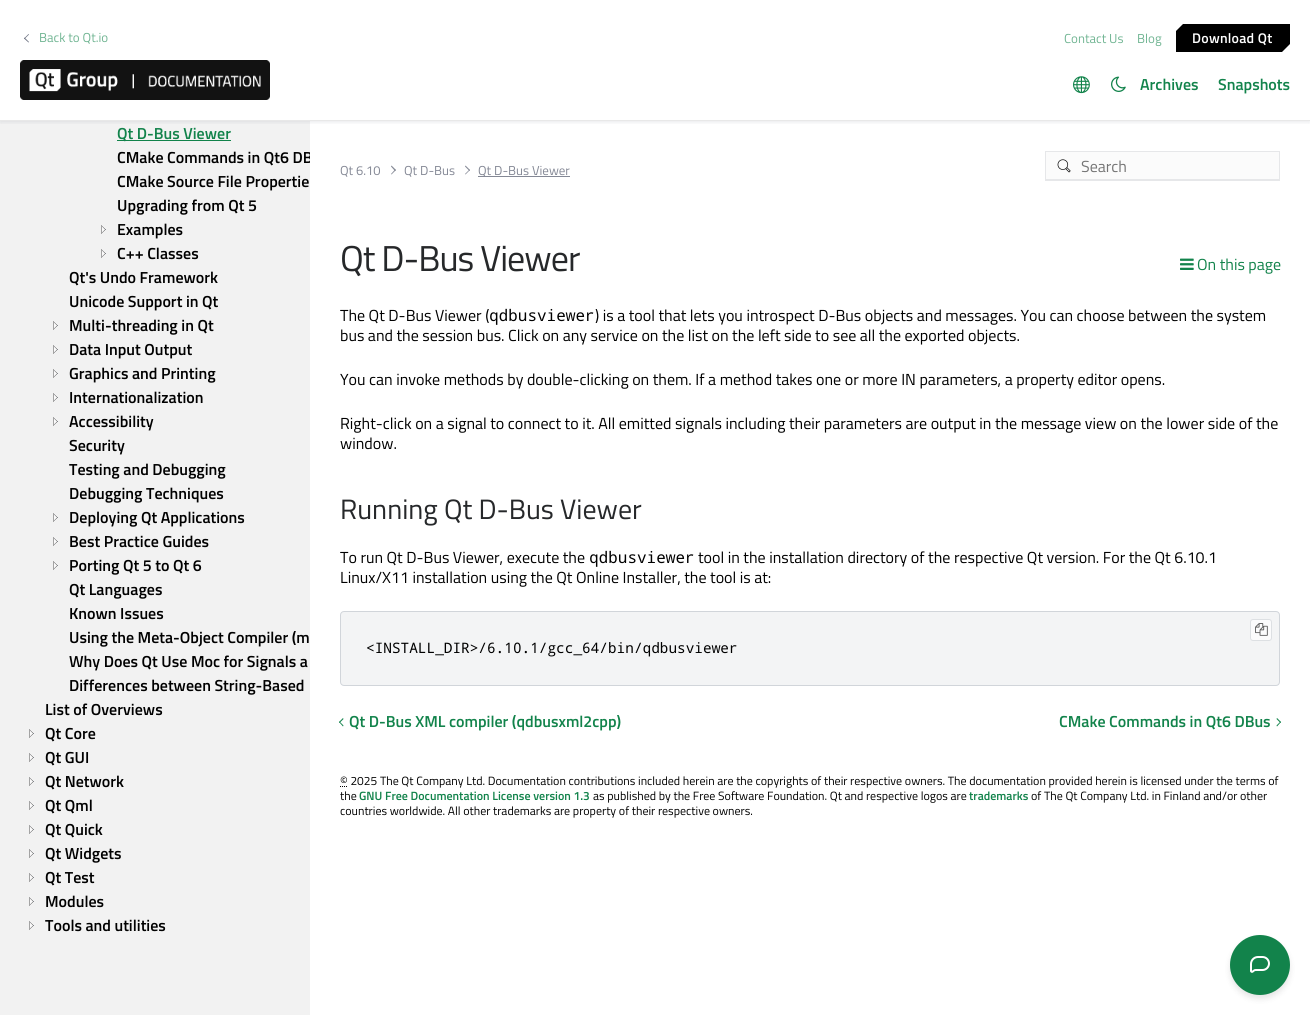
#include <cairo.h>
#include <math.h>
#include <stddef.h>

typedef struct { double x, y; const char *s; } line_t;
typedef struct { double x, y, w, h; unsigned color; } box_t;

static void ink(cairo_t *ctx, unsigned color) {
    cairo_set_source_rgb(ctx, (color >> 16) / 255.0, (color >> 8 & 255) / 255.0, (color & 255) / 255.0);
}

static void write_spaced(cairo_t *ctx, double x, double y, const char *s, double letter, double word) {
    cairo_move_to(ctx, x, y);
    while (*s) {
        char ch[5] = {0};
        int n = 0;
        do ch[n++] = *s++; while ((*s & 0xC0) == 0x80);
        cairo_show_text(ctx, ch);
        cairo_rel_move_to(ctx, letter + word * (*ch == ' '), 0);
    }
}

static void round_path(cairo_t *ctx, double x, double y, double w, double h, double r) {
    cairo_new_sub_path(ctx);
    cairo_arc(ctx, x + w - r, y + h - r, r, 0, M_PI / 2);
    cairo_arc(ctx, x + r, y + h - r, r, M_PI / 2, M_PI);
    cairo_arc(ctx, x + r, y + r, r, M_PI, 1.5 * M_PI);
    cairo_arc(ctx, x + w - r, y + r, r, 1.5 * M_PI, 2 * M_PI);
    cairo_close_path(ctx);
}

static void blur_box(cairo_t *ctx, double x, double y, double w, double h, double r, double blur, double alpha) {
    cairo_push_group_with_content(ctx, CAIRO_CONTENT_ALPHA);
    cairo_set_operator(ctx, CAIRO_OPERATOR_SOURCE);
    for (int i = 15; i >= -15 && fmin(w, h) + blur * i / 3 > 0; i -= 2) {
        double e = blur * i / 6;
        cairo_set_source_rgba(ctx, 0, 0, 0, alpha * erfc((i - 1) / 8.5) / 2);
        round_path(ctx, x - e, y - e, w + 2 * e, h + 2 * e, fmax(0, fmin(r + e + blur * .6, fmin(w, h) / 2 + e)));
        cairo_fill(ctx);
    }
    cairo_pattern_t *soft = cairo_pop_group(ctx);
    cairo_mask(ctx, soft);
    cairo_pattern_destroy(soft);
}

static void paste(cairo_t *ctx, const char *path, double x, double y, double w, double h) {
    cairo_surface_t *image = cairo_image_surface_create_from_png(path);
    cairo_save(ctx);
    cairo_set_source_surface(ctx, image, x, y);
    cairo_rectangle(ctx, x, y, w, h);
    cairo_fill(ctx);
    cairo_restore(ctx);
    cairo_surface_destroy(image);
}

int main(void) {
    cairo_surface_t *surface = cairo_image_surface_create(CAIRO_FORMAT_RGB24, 1310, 1015);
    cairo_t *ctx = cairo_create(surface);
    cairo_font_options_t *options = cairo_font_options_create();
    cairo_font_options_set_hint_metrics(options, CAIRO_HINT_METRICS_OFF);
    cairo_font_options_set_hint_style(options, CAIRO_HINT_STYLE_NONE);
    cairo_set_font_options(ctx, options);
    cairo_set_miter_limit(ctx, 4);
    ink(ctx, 0xFFFFFF);
    cairo_paint(ctx);
    ink(ctx, 0xF2F2F2);
    cairo_rectangle(ctx, 0, 121, 310, 894);
    cairo_fill(ctx);
    cairo_save(ctx);
    cairo_rectangle(ctx, 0, 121, 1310, 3);
    cairo_clip(ctx);
    ink(ctx, 0x09102B);
    blur_box(ctx, 0, 1, 1310, 121, 0, 2.5, 0.1);
    cairo_restore(ctx);
    ink(ctx, 0xE8E8E8);
    cairo_rectangle(ctx, 0, 120, 1310, 1);
    cairo_fill(ctx);
    ink(ctx, 0x6B7080);
    cairo_new_path(ctx);
    cairo_move_to(ctx, 29, 42);
    cairo_line_to(ctx, 28.5, 42.5);
    cairo_line_to(ctx, 24, 38.5);
    cairo_line_to(ctx, 24.5, 37.5);
    cairo_close_path(ctx);
    cairo_fill(ctx);
    cairo_new_path(ctx);
    cairo_move_to(ctx, 29, 34.5);
    cairo_line_to(ctx, 24.5, 39);
    cairo_line_to(ctx, 24, 38.5);
    cairo_line_to(ctx, 28.5, 34);
    cairo_close_path(ctx);
    cairo_fill(ctx);
    cairo_select_font_face(ctx, "Titillium Web", CAIRO_FONT_SLANT_NORMAL, CAIRO_FONT_WEIGHT_NORMAL);
    cairo_set_font_size(ctx, 13);
    ink(ctx, 0x71B593);
    {
        static const line_t items[] = {
            {39, 42, "Back to Qt.io"},
            {1064, 43, "Contact Us"},
            {1137, 43, "Blog"},
        };
        for (size_t i = 0; i < sizeof items / sizeof *items; i++) {
            cairo_move_to(ctx, items[i].x, items[i].y);
            cairo_show_text(ctx, items[i].s);
        }
    }
    ink(ctx, 0x000000);
    cairo_new_path(ctx);
    cairo_move_to(ctx, 1176, 31);
    cairo_line_to(ctx, 1183, 24);
    cairo_line_to(ctx, 1290, 24);
    cairo_line_to(ctx, 1290, 44);
    cairo_line_to(ctx, 1282, 52);
    cairo_line_to(ctx, 1176, 52);
    cairo_close_path(ctx);
    cairo_fill(ctx);
    cairo_select_font_face(ctx, "Titillium Web SemiBold", CAIRO_FONT_SLANT_NORMAL, CAIRO_FONT_WEIGHT_NORMAL);
    cairo_set_font_size(ctx, 14);
    ink(ctx, 0xFFFFFF);
    write_spaced(ctx, 1192, 43, "Download Qt", 0.25, 0);
    paste(ctx, "media/1.png", 20, 60, 250, 40);
    paste(ctx, "media/2.png", 1073, 76, 17, 18);
    paste(ctx, "media/3.png", 1111, 76, 15, 16);
    cairo_set_font_size(ctx, 16);
    ink(ctx, 0x12834B);
    cairo_move_to(ctx, 1140, 90);
    cairo_show_text(ctx, "Archives");
    cairo_move_to(ctx, 1218, 90);
    cairo_show_text(ctx, "Snapshots");
    cairo_rectangle(ctx, 117, 140, 114, 1);
    cairo_fill(ctx);
    cairo_move_to(ctx, 117, 139);
    cairo_show_text(ctx, "Qt D-Bus Viewer");
    cairo_save(ctx);
    cairo_rectangle(ctx, 0, 121, 310, 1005);
    cairo_clip(ctx);
    ink(ctx, 0x000000);
    cairo_move_to(ctx, 117, 163);
    cairo_show_text(ctx, "CMake Commands in Qt6 DB");
    cairo_restore(ctx);
    ink(ctx, 0x000000);
    cairo_move_to(ctx, 117, 187);
    cairo_show_text(ctx, "CMake Source File Propertie");
    cairo_move_to(ctx, 117, 211);
    cairo_show_text(ctx, "Upgrading from Qt 5");
    paste(ctx, "media/4.png", 101, 225, 5, 9);
    cairo_move_to(ctx, 117, 235);
    cairo_show_text(ctx, "Examples");
    paste(ctx, "media/4.png", 101, 249, 5, 9);
    {
        static const line_t items[] = {
            {117, 259, "C++ Classes"},
            {69, 283, "Qt's Undo Framework"},
            {69, 307, "Unicode Support in Qt"},
        };
        for (size_t i = 0; i < sizeof items / sizeof *items; i++) {
            cairo_move_to(ctx, items[i].x, items[i].y);
            cairo_show_text(ctx, items[i].s);
        }
    }
    paste(ctx, "media/4.png", 53, 321, 5, 9);
    cairo_move_to(ctx, 69, 331);
    cairo_show_text(ctx, "Multi-threading in Qt");
    paste(ctx, "media/4.png", 53, 345, 5, 9);
    cairo_move_to(ctx, 69, 355);
    cairo_show_text(ctx, "Data Input Output");
    paste(ctx, "media/4.png", 53, 369, 5, 9);
    cairo_move_to(ctx, 69, 379);
    cairo_show_text(ctx, "Graphics and Printing");
    paste(ctx, "media/4.png", 53, 393, 5, 9);
    cairo_move_to(ctx, 69, 403);
    cairo_show_text(ctx, "Internationalization");
    paste(ctx, "media/4.png", 53, 417, 5, 9);
    {
        static const line_t items[] = {
            {69, 427, "Accessibility"},
            {69, 451, "Security"},
            {69, 475, "Testing and Debugging"},
            {69, 499, "Debugging Techniques"},
        };
        for (size_t i = 0; i < sizeof items / sizeof *items; i++) {
            cairo_move_to(ctx, items[i].x, items[i].y);
            cairo_show_text(ctx, items[i].s);
        }
    }
    paste(ctx, "media/4.png", 53, 513, 5, 9);
    cairo_move_to(ctx, 69, 523);
    cairo_show_text(ctx, "Deploying Qt Applications");
    paste(ctx, "media/4.png", 53, 537, 5, 9);
    cairo_move_to(ctx, 69, 547);
    cairo_show_text(ctx, "Best Practice Guides");
    paste(ctx, "media/4.png", 53, 561, 5, 9);
    {
        static const line_t items[] = {
            {69, 571, "Porting Qt 5 to Qt 6"},
            {69, 595, "Qt Languages"},
            {69, 619, "Known Issues"},
            {69, 643, "Using the Meta-Object Compiler (m"},
            {69, 667, "Why Does Qt Use Moc for Signals a"},
            {69, 691, "Differences between String-Based"},
            {45, 715, "List of Overviews"},
        };
        for (size_t i = 0; i < sizeof items / sizeof *items; i++) {
            cairo_move_to(ctx, items[i].x, items[i].y);
            cairo_show_text(ctx, items[i].s);
        }
    }
    paste(ctx, "media/4.png", 29, 729, 5, 9);
    cairo_move_to(ctx, 45, 739);
    cairo_show_text(ctx, "Qt Core");
    paste(ctx, "media/4.png", 29, 753, 5, 9);
    cairo_move_to(ctx, 45, 763);
    cairo_show_text(ctx, "Qt GUI");
    paste(ctx, "media/4.png", 29, 777, 5, 9);
    cairo_move_to(ctx, 45, 787);
    cairo_show_text(ctx, "Qt Network");
    paste(ctx, "media/4.png", 29, 801, 5, 9);
    cairo_move_to(ctx, 45, 811);
    cairo_show_text(ctx, "Qt Qml");
    paste(ctx, "media/4.png", 29, 825, 5, 9);
    cairo_move_to(ctx, 45, 835);
    cairo_show_text(ctx, "Qt Quick");
    paste(ctx, "media/4.png", 29, 849, 5, 9);
    cairo_move_to(ctx, 45, 859);
    cairo_show_text(ctx, "Qt Widgets");
    paste(ctx, "media/4.png", 29, 873, 5, 9);
    cairo_move_to(ctx, 45, 883);
    cairo_show_text(ctx, "Qt Test");
    paste(ctx, "media/4.png", 29, 897, 5, 9);
    cairo_move_to(ctx, 45, 907);
    cairo_show_text(ctx, "Modules");
    paste(ctx, "media/4.png", 29, 921, 5, 9);
    cairo_move_to(ctx, 45, 931);
    cairo_show_text(ctx, "Tools and utilities");
    cairo_select_font_face(ctx, "Titillium Web", CAIRO_FONT_SLANT_NORMAL, CAIRO_FONT_WEIGHT_NORMAL);
    cairo_set_font_size(ctx, 13);
    ink(ctx, 0x848895);
    cairo_move_to(ctx, 340, 175);
    cairo_show_text(ctx, "Qt 6.10");
    cairo_new_path(ctx);
    cairo_move_to(ctx, 391, 166.5);
    cairo_line_to(ctx, 391.5, 165.5);
    cairo_line_to(ctx, 396, 170);
    cairo_line_to(ctx, 395, 171);
    cairo_close_path(ctx);
    cairo_fill(ctx);
    cairo_new_path(ctx);
    cairo_move_to(ctx, 391, 174);
    cairo_line_to(ctx, 395, 169.5);
    cairo_line_to(ctx, 396, 170);
    cairo_line_to(ctx, 391.5, 174.5);
    cairo_close_path(ctx);
    cairo_fill(ctx);
    cairo_move_to(ctx, 404, 175);
    cairo_show_text(ctx, "Qt D-Bus");
    cairo_new_path(ctx);
    cairo_move_to(ctx, 465, 166.5);
    cairo_line_to(ctx, 465.5, 165.5);
    cairo_line_to(ctx, 470, 170);
    cairo_line_to(ctx, 469.5, 171);
    cairo_close_path(ctx);
    cairo_fill(ctx);
    cairo_new_path(ctx);
    cairo_move_to(ctx, 465, 174);
    cairo_line_to(ctx, 469.5, 169.5);
    cairo_line_to(ctx, 470, 170);
    cairo_line_to(ctx, 465.5, 174.5);
    cairo_close_path(ctx);
    cairo_fill(ctx);
    cairo_rectangle(ctx, 478, 176, 92, 1);
    cairo_fill(ctx);
    cairo_move_to(ctx, 478, 175);
    cairo_show_text(ctx, "Qt D-Bus Viewer");
    ink(ctx, 0xFBFBFB);
    cairo_rectangle(ctx, 1046, 152, 233, 27);
    cairo_fill(ctx);
    paste(ctx, "media/5.png", 1057, 159, 14, 14);
    {
        static const box_t items[] = {
            {1045, 151, 235, 1, 0xE6E7E9},
            {1279, 151, 1, 30, 0xE6E7E9},
            {1045, 179, 235, 2, 0xE6E7E9},
            {1045, 151, 1, 30, 0xE6E7E9},
        };
        for (size_t i = 0; i < sizeof items / sizeof *items; i++) {
            ink(ctx, items[i].color);
            cairo_rectangle(ctx, items[i].x, items[i].y, items[i].w, items[i].h);
            cairo_fill(ctx);
        }
    }
    cairo_set_font_size(ctx, 16);
    ink(ctx, 0x757575);
    cairo_move_to(ctx, 1081, 172);
    cairo_show_text(ctx, "Search");
    cairo_set_font_size(ctx, 36);
    ink(ctx, 0x26282A);
    write_spaced(ctx, 340, 271, "Qt D-Bus Viewer", -1, 0);
    cairo_set_font_size(ctx, 16);
    ink(ctx, 0x000000);
    cairo_move_to(ctx, 340, 321);
    cairo_show_text(ctx, "The Qt D-Bus Viewer (");
    cairo_select_font_face(ctx, "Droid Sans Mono", CAIRO_FONT_SLANT_NORMAL, CAIRO_FONT_WEIGHT_NORMAL);
    cairo_move_to(ctx, 489, 321);
    cairo_show_text(ctx, "qdbusviewer");
    cairo_select_font_face(ctx, "Titillium Web", CAIRO_FONT_SLANT_NORMAL, CAIRO_FONT_WEIGHT_NORMAL);
    {
        static const line_t items[] = {
            {595, 321, ") is a tool that lets you introspect D-Bus objects and messages. You can choose between the system"},
            {340, 341, "bus and the session bus. Click on any service on the list on the left side to see all the exported objects."},
            {340, 385, "You can invoke methods by double-clicking on them. If a method takes one or more IN parameters, a property editor opens."},
            {340, 429, "Right-click on a signal to connect to it. All emitted signals including their parameters are output in the message view on the lower side of the"},
            {340, 449, "window."},
        };
        for (size_t i = 0; i < sizeof items / sizeof *items; i++) {
            cairo_move_to(ctx, items[i].x, items[i].y);
            cairo_show_text(ctx, items[i].s);
        }
    }
    cairo_set_font_size(ctx, 28);
    ink(ctx, 0x26282A);
    cairo_move_to(ctx, 340, 519);
    cairo_show_text(ctx, "Running Qt D-Bus Viewer");
    cairo_set_font_size(ctx, 16);
    ink(ctx, 0x000000);
    cairo_move_to(ctx, 340, 563);
    cairo_show_text(ctx, "To run Qt D-Bus Viewer, execute the");
    cairo_select_font_face(ctx, "Droid Sans Mono", CAIRO_FONT_SLANT_NORMAL, CAIRO_FONT_WEIGHT_NORMAL);
    cairo_move_to(ctx, 589, 563);
    cairo_show_text(ctx, "qdbusviewer");
    cairo_select_font_face(ctx, "Titillium Web", CAIRO_FONT_SLANT_NORMAL, CAIRO_FONT_WEIGHT_NORMAL);
    cairo_move_to(ctx, 698, 563);
    cairo_show_text(ctx, "tool in the installation directory of the respective Qt version. For the Qt 6.10.1");
    cairo_move_to(ctx, 340, 583);
    cairo_show_text(ctx, "Linux/X11 installation using the Qt Online Installer, the tool is at:");
    ink(ctx, 0xF3F4F5);
    round_path(ctx, 340.5, 611.5, 939, 74, 3.5);
    cairo_fill_preserve(ctx);
    ink(ctx, 0xD1D5DA);
    cairo_set_line_width(ctx, 1);
    cairo_stroke(ctx);
    ink(ctx, 0xFBFBFC);
    round_path(ctx, 1250.5, 619.5, 21, 21, 2.5);
    cairo_fill_preserve(ctx);
    ink(ctx, 0xDDE0E3);
    cairo_stroke(ctx);
    paste(ctx, "media/6.png", 1255, 623, 13, 13);
    cairo_select_font_face(ctx, "Droid Sans Mono", CAIRO_FONT_SLANT_NORMAL, CAIRO_FONT_WEIGHT_NORMAL);
    cairo_set_font_size(ctx, 14.4);
    ink(ctx, 0x000000);
    cairo_move_to(ctx, 366, 653);
    cairo_show_text(ctx, "<INSTALL_DIR>/6.10.1/gcc_64/bin/qdbusviewer");
    ink(ctx, 0x12834B);
    cairo_new_path(ctx);
    cairo_move_to(ctx, 343.5, 725.5);
    cairo_line_to(ctx, 343, 726.5);
    cairo_line_to(ctx, 339, 722);
    cairo_line_to(ctx, 339.5, 721.5);
    cairo_close_path(ctx);
    cairo_fill(ctx);
    cairo_new_path(ctx);
    cairo_move_to(ctx, 343.5, 719);
    cairo_line_to(ctx, 339.5, 723);
    cairo_line_to(ctx, 339, 722);
    cairo_line_to(ctx, 343, 718);
    cairo_close_path(ctx);
    cairo_fill(ctx);
    cairo_select_font_face(ctx, "Titillium Web SemiBold", CAIRO_FONT_SLANT_NORMAL, CAIRO_FONT_WEIGHT_NORMAL);
    cairo_set_font_size(ctx, 16);
    cairo_move_to(ctx, 349, 727);
    cairo_show_text(ctx, "Qt D-Bus XML compiler (qdbusxml2cpp)");
    cairo_move_to(ctx, 1059, 727);
    cairo_show_text(ctx, "CMake Commands in Qt6 DBus");
    cairo_new_path(ctx);
    cairo_move_to(ctx, 1276.5, 719);
    cairo_line_to(ctx, 1277, 718);
    cairo_line_to(ctx, 1281, 722);
    cairo_line_to(ctx, 1280.5, 723);
    cairo_close_path(ctx);
    cairo_fill(ctx);
    cairo_new_path(ctx);
    cairo_move_to(ctx, 1276.5, 725.5);
    cairo_line_to(ctx, 1280.5, 721.5);
    cairo_line_to(ctx, 1281, 722);
    cairo_line_to(ctx, 1277, 726.5);
    cairo_close_path(ctx);
    cairo_fill(ctx);
    cairo_new_path(ctx);
    cairo_move_to(ctx, 340, 786.5);
    cairo_line_to(ctx, 348, 786.5);
    ink(ctx, 0x000000);
    cairo_set_dash(ctx, (double[]){1, 1}, 2, 0);
    cairo_stroke(ctx);
    cairo_select_font_face(ctx, "Titillium Web", CAIRO_FONT_SLANT_NORMAL, CAIRO_FONT_WEIGHT_NORMAL);
    cairo_set_font_size(ctx, 12);
    cairo_move_to(ctx, 340, 785);
    cairo_show_text(ctx, "© 2025 The Qt Company Ltd. Documentation contributions included herein are the copyrights of their respective owners. The documentation provided herein is licensed under the terms of");
    cairo_move_to(ctx, 340, 800);
    cairo_show_text(ctx, "the");
    cairo_select_font_face(ctx, "Titillium Web SemiBold", CAIRO_FONT_SLANT_NORMAL, CAIRO_FONT_WEIGHT_NORMAL);
    ink(ctx, 0x12834B);
    cairo_move_to(ctx, 359, 800);
    cairo_show_text(ctx, "GNU Free Documentation License version 1.3");
    cairo_select_font_face(ctx, "Titillium Web", CAIRO_FONT_SLANT_NORMAL, CAIRO_FONT_WEIGHT_NORMAL);
    ink(ctx, 0x000000);
    cairo_move_to(ctx, 593, 800);
    cairo_show_text(ctx, "as published by the Free Software Foundation. Qt and respective logos are");
    cairo_select_font_face(ctx, "Titillium Web SemiBold", CAIRO_FONT_SLANT_NORMAL, CAIRO_FONT_WEIGHT_NORMAL);
    ink(ctx, 0x12834B);
    cairo_move_to(ctx, 969, 800);
    cairo_show_text(ctx, "trademarks");
    cairo_select_font_face(ctx, "Titillium Web", CAIRO_FONT_SLANT_NORMAL, CAIRO_FONT_WEIGHT_NORMAL);
    ink(ctx, 0x000000);
    cairo_move_to(ctx, 1031, 800);
    cairo_show_text(ctx, "of The Qt Company Ltd. in Finland and/or other");
    cairo_move_to(ctx, 340, 815);
    cairo_show_text(ctx, "countries worldwide. All other trademarks are property of their respective owners.");
    paste(ctx, "media/7.png", 1180, 258, 14, 12);
    cairo_set_font_size(ctx, 16);
    ink(ctx, 0x12834B);
    cairo_move_to(ctx, 1197, 270);
    cairo_show_text(ctx, "On this page");
    ink(ctx, 0x000000);
    blur_box(ctx, 1230, 939, 60, 60, 30, 3, 0.1);
    ink(ctx, 0x12834B);
    cairo_arc(ctx, 1260, 965, 30, 0, 2 * M_PI);
    cairo_fill(ctx);
    paste(ctx, "media/8.png", 1250, 956, 20, 17);
    cairo_surface_write_to_png(surface, "image.png");
    cairo_font_options_destroy(options);
    cairo_destroy(ctx);
    cairo_surface_destroy(surface);
    return 0;
}
